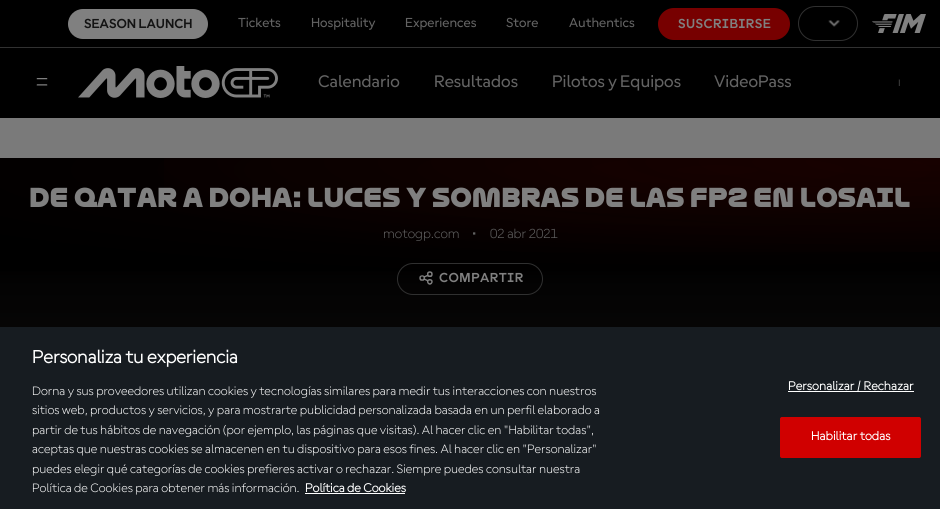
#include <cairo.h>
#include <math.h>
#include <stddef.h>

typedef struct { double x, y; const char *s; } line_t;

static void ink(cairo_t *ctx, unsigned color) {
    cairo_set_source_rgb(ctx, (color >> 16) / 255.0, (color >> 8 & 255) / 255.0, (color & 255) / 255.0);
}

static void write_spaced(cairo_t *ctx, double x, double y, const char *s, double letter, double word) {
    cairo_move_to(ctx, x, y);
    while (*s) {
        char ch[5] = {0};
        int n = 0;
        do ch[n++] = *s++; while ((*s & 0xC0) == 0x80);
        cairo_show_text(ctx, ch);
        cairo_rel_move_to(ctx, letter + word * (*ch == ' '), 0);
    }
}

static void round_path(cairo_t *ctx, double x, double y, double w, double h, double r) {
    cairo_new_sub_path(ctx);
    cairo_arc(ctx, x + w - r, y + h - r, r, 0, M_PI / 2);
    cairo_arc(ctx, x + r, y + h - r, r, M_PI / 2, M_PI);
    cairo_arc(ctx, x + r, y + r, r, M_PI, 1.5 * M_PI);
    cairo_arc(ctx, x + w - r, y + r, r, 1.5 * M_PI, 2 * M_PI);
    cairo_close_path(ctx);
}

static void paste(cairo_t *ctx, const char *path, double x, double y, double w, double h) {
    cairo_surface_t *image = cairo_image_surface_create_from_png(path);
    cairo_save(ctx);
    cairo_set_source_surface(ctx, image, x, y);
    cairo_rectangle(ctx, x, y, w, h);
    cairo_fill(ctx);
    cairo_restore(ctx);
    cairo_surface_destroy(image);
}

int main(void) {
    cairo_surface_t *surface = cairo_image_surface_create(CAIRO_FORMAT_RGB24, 940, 509);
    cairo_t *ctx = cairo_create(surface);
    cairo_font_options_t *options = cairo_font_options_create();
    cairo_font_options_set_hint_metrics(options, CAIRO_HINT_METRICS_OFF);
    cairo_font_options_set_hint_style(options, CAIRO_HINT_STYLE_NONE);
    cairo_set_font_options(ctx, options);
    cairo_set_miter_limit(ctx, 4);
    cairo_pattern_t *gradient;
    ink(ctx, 0x7A7A7A);
    cairo_paint(ctx);
    ink(ctx, 0x000000);
    cairo_rectangle(ctx, 0, 0, 940, 47);
    cairo_fill(ctx);
    ink(ctx, 0x313131);
    cairo_rectangle(ctx, 0, 47, 940, 1);
    cairo_fill(ctx);
    ink(ctx, 0x808080);
    round_path(ctx, 68, 9, 140, 30, 15);
    cairo_fill(ctx);
    cairo_select_font_face(ctx, "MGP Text", CAIRO_FONT_SLANT_NORMAL, CAIRO_FONT_WEIGHT_BOLD);
    cairo_set_font_size(ctx, 14);
    ink(ctx, 0x131313);
    cairo_move_to(ctx, 84, 28);
    cairo_show_text(ctx, "SEASON LAUNCH");
    cairo_select_font_face(ctx, "MGP Text Medium", CAIRO_FONT_SLANT_NORMAL, CAIRO_FONT_WEIGHT_NORMAL);
    ink(ctx, 0x636363);
    {
        static const line_t items[] = {
            {238, 27, "Tickets"},
            {311, 27, "Hospitality"},
            {405, 27, "Experiences"},
            {506, 27, "Store"},
            {569, 27, "Authentics"},
        };
        for (size_t i = 0; i < sizeof items / sizeof *items; i++) {
            cairo_move_to(ctx, items[i].x, items[i].y);
            cairo_show_text(ctx, items[i].s);
        }
    }
    ink(ctx, 0x770000);
    round_path(ctx, 658, 8, 132, 32, 16);
    cairo_fill(ctx);
    cairo_select_font_face(ctx, "MGP Text", CAIRO_FONT_SLANT_NORMAL, CAIRO_FONT_WEIGHT_BOLD);
    ink(ctx, 0x808080);
    write_spaced(ctx, 678, 28, "SUSCRIBIRSE", 0.5, 0);
    round_path(ctx, 798.5, 6.5, 59, 34, 17);
    ink(ctx, 0x303030);
    cairo_set_line_width(ctx, 1);
    cairo_stroke(ctx);
    paste(ctx, "media/1.png", 828, 20, 12, 7);
    paste(ctx, "media/2.png", 872, 14, 54, 19);
    ink(ctx, 0x000000);
    cairo_rectangle(ctx, 0, 48, 940, 70);
    cairo_fill(ctx);
    paste(ctx, "media/3.png", 36, 78, 12, 8);
    paste(ctx, "media/4.png", 78, 66, 200, 32);
    cairo_select_font_face(ctx, "MGP Text Medium", CAIRO_FONT_SLANT_NORMAL, CAIRO_FONT_WEIGHT_NORMAL);
    cairo_set_font_size(ctx, 18);
    ink(ctx, 0x636363);
    {
        static const line_t items[] = {
            {318, 87, "Calendario"},
            {434, 87, "Resultados"},
            {552, 87, "Pilotos y Equipos"},
            {714, 87, "VideoPass"},
        };
        for (size_t i = 0; i < sizeof items / sizeof *items; i++) {
            cairo_move_to(ctx, items[i].x, items[i].y);
            cairo_show_text(ctx, items[i].s);
        }
    }
    cairo_select_font_face(ctx, "MGP Text Light", CAIRO_FONT_SLANT_NORMAL, CAIRO_FONT_WEIGHT_NORMAL);
    cairo_set_font_size(ctx, 10);
    ink(ctx, 0x808080);
    cairo_move_to(ctx, 898, 86);
    cairo_show_text(ctx, "|");
    gradient = cairo_pattern_create_radial(0, 0, 0, 0, 0, 1);
    cairo_pattern_set_matrix(gradient, &(cairo_matrix_t){1.0 / 948, 0, 0, 1.0 / 110, -1.0 * 717 / 948, -1.0 * 170 / 110});
    cairo_pattern_add_color_stop_rgba(gradient, 0, 0.043, 0.004, 0, 1);
    cairo_pattern_add_color_stop_rgba(gradient, 1, 0, 0, 0, 1);
    cairo_set_source(ctx, gradient);
    cairo_pattern_destroy(gradient);
    cairo_rectangle(ctx, 0, 158, 940, 113);
    cairo_fill(ctx);
    gradient = cairo_pattern_create_radial(0, 0, 0, 0, 0, 1);
    cairo_pattern_set_matrix(gradient, &(cairo_matrix_t){1.0 / 910, 0, 0, 1.0 / 105, -1.0 * 940 / 910, -1.0 * 162 / 105});
    cairo_pattern_add_color_stop_rgba(gradient, 0, 0.29, 0.008, 0.004, 0.23);
    cairo_pattern_add_color_stop_rgba(gradient, 1, 0.29, 0.008, 0.004, 0);
    cairo_set_source(ctx, gradient);
    cairo_pattern_destroy(gradient);
    cairo_rectangle(ctx, 164, 158, 776, 94);
    cairo_fill(ctx);
    cairo_select_font_face(ctx, "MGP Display", CAIRO_FONT_SLANT_NORMAL, CAIRO_FONT_WEIGHT_BOLD);
    cairo_set_font_size(ctx, 24);
    ink(ctx, 0x808080);
    cairo_move_to(ctx, 29, 207);
    cairo_show_text(ctx, "De Qatar a Doha: Luces y sombras de las FP2 en Losail");
    cairo_select_font_face(ctx, "MGP Text Light", CAIRO_FONT_SLANT_NORMAL, CAIRO_FONT_WEIGHT_NORMAL);
    cairo_set_font_size(ctx, 14);
    ink(ctx, 0x636363);
    {
        static const line_t items[] = {
            {383, 238, "motogp.com"},
            {472, 238, "•"},
            {490, 238, "02 abr 2021"},
        };
        for (size_t i = 0; i < sizeof items / sizeof *items; i++) {
            cairo_move_to(ctx, items[i].x, items[i].y);
            cairo_show_text(ctx, items[i].s);
        }
    }
    gradient = cairo_pattern_create_linear(470, 231, 470, 431);
    cairo_pattern_add_color_stop_rgba(gradient, 0.16, 0, 0, 0, 1);
    cairo_pattern_add_color_stop_rgba(gradient, 0.28, 0.016, 0.012, 0.012, 1);
    cairo_pattern_add_color_stop_rgba(gradient, 1, 0.043, 0.043, 0.043, 1);
    cairo_set_source(ctx, gradient);
    cairo_pattern_destroy(gradient);
    cairo_rectangle(ctx, 0, 271, 940, 56);
    cairo_fill(ctx);
    round_path(ctx, 397.5, 263.5, 145, 31, 15.5);
    ink(ctx, 0x303030);
    cairo_stroke(ctx);
    paste(ctx, "media/5.png", 419, 271, 14, 14);
    cairo_select_font_face(ctx, "MGP Text", CAIRO_FONT_SLANT_NORMAL, CAIRO_FONT_WEIGHT_BOLD);
    ink(ctx, 0x808080);
    write_spaced(ctx, 439, 282, "COMPARTIR", 0.5, 0);
    ink(ctx, 0x171C21);
    cairo_rectangle(ctx, 0, 327, 940, 182);
    cairo_fill(ctx);
    cairo_select_font_face(ctx, "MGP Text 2", CAIRO_FONT_SLANT_NORMAL, CAIRO_FONT_WEIGHT_BOLD);
    cairo_set_font_size(ctx, 19.25);
    ink(ctx, 0xFFFFFF);
    cairo_move_to(ctx, 32, 363);
    cairo_show_text(ctx, "Personaliza tu experiencia");
    cairo_select_font_face(ctx, "MGP Text Light", CAIRO_FONT_SLANT_NORMAL, CAIRO_FONT_WEIGHT_NORMAL);
    cairo_set_font_size(ctx, 13);
    {
        static const line_t items[] = {
            {32, 395, "Dorna y sus proveedores utilizan cookies y tecnologías similares para medir tus interacciones con nuestros"},
            {32, 414, "sitios web, productos y servicios, y para mostrarte publicidad personalizada basada en un perfil elaborado a"},
            {32, 434, "partir de tus hábitos de navegación (por ejemplo, las páginas que visitas). Al hacer clic en \"Habilitar todas\","},
            {32, 453, "aceptas que nuestras cookies se almacenen en tu dispositivo para esos fines. Al hacer clic en \"Personalizar\""},
            {32, 473, "puedes elegir qué categorías de cookies prefieres activar o rechazar. Siempre puedes consultar nuestra"},
            {32, 492, "Política de Cookies para obtener más información."},
        };
        for (size_t i = 0; i < sizeof items / sizeof *items; i++) {
            cairo_move_to(ctx, items[i].x, items[i].y);
            cairo_show_text(ctx, items[i].s);
        }
    }
    cairo_select_font_face(ctx, "MGP Text 2", CAIRO_FONT_SLANT_NORMAL, CAIRO_FONT_WEIGHT_BOLD);
    cairo_move_to(ctx, 305, 492);
    cairo_show_text(ctx, "Política de Cookies");
    cairo_rectangle(ctx, 305, 493, 100, 1);
    cairo_fill(ctx);
    cairo_rectangle(ctx, 788, 391, 126, 1);
    cairo_fill(ctx);
    write_spaced(ctx, 788, 390, "Personalizar / Rechazar", 0.1, 0);
    ink(ctx, 0xD00000);
    round_path(ctx, 780.5, 417.5, 140, 40, 1.5);
    cairo_fill_preserve(ctx);
    cairo_stroke(ctx);
    ink(ctx, 0xFFFFFF);
    write_spaced(ctx, 811, 440, "Habilitar todas", 0.1, 0);
    cairo_surface_write_to_png(surface, "image.png");
    cairo_font_options_destroy(options);
    cairo_destroy(ctx);
    cairo_surface_destroy(surface);
    return 0;
}
